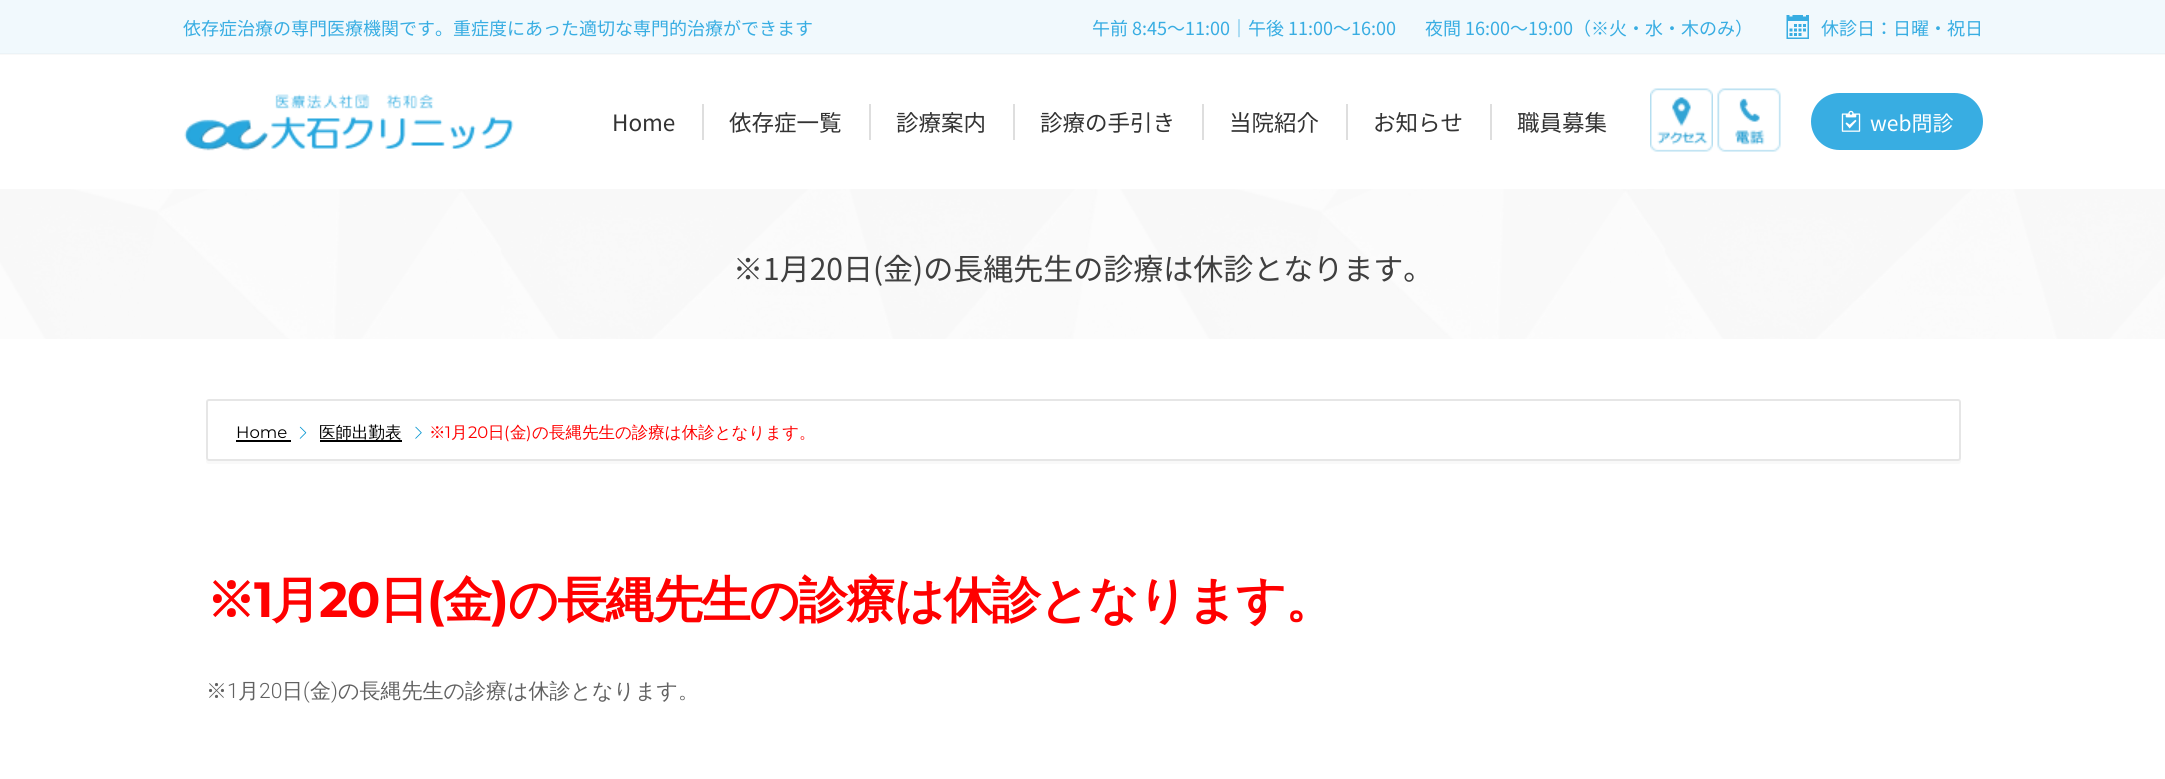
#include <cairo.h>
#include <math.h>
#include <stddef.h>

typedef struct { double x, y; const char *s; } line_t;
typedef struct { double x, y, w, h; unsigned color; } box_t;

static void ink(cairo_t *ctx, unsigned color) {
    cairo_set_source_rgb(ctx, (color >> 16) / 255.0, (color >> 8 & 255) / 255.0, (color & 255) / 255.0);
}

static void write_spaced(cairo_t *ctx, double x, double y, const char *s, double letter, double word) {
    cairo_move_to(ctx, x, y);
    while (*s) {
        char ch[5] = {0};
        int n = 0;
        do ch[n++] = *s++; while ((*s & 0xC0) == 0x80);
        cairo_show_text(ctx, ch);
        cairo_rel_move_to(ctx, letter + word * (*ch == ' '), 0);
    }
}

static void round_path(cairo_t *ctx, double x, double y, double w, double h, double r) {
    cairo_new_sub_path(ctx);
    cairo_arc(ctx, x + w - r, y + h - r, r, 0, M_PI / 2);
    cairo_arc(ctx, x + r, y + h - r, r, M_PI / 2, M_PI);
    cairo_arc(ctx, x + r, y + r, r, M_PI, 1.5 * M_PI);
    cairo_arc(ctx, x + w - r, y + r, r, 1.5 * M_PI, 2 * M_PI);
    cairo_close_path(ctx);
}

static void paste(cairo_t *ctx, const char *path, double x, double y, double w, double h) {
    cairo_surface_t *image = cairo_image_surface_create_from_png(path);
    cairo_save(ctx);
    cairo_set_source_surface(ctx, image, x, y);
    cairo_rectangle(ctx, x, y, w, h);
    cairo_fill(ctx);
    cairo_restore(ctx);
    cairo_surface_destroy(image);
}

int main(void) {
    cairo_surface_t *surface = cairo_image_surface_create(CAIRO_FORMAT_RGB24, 2165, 779);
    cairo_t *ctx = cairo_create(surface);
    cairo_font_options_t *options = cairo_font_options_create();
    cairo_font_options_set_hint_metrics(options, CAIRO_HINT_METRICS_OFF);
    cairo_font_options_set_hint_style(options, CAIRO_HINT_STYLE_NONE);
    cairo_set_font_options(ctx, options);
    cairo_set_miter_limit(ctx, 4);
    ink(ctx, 0xFFFFFF);
    cairo_paint(ctx);
    {
        static const box_t items[] = {
            {0, 54, 2165, 1, 0xF9F9F9},
            {0, 0, 2165, 53, 0xF1F9FD},
            {0, 53, 2165, 1, 0xEBF3F7},
        };
        for (size_t i = 0; i < sizeof items / sizeof *items; i++) {
            ink(ctx, items[i].color);
            cairo_rectangle(ctx, items[i].x, items[i].y, items[i].w, items[i].h);
            cairo_fill(ctx);
        }
    }
    cairo_select_font_face(ctx, "Noto Sans JP", CAIRO_FONT_SLANT_NORMAL, CAIRO_FONT_WEIGHT_NORMAL);
    cairo_set_font_size(ctx, 18);
    ink(ctx, 0x38ADE2);
    {
        static const line_t items[] = {
            {183, 35, "依存症治療の専門医療機関です。重症度にあった適切な専門的治療ができます"},
            {1092, 35, "午前 8:45～11:00｜午後 11:00～16:00"},
            {1425, 35, "夜間 16:00～19:00（※火・水・木のみ）"},
        };
        for (size_t i = 0; i < sizeof items / sizeof *items; i++) {
            cairo_move_to(ctx, items[i].x, items[i].y);
            cairo_show_text(ctx, items[i].s);
        }
    }
    paste(ctx, "media/1.png", 1786, 15, 23, 24);
    cairo_move_to(ctx, 1821, 35);
    cairo_show_text(ctx, "休診日：日曜・祝日");
    paste(ctx, "media/2.png", 184, 94, 330, 57);
    cairo_set_font_size(ctx, 22.5);
    ink(ctx, 0x333333);
    cairo_move_to(ctx, 612, 131);
    cairo_show_text(ctx, "Home");
    ink(ctx, 0xDEDEDE);
    cairo_rectangle(ctx, 702, 104, 2, 36);
    cairo_fill(ctx);
    ink(ctx, 0x333333);
    cairo_move_to(ctx, 729, 131);
    cairo_show_text(ctx, "依存症一覧");
    ink(ctx, 0xDEDEDE);
    cairo_rectangle(ctx, 869, 104, 2, 36);
    cairo_fill(ctx);
    ink(ctx, 0x333333);
    cairo_move_to(ctx, 896, 131);
    cairo_show_text(ctx, "診療案内");
    ink(ctx, 0xDEDEDE);
    cairo_rectangle(ctx, 1013, 104, 2, 36);
    cairo_fill(ctx);
    ink(ctx, 0x333333);
    cairo_move_to(ctx, 1040, 131);
    cairo_show_text(ctx, "診療の手引き");
    ink(ctx, 0xDEDEDE);
    cairo_rectangle(ctx, 1202, 104, 2, 36);
    cairo_fill(ctx);
    ink(ctx, 0x333333);
    cairo_move_to(ctx, 1229, 131);
    cairo_show_text(ctx, "当院紹介");
    ink(ctx, 0xDEDEDE);
    cairo_rectangle(ctx, 1346, 104, 2, 36);
    cairo_fill(ctx);
    ink(ctx, 0x333333);
    cairo_move_to(ctx, 1373, 131);
    cairo_show_text(ctx, "お知らせ");
    ink(ctx, 0xDEDEDE);
    cairo_rectangle(ctx, 1490, 104, 2, 36);
    cairo_fill(ctx);
    ink(ctx, 0x333333);
    cairo_move_to(ctx, 1517, 131);
    cairo_show_text(ctx, "職員募集");
    paste(ctx, "media/3.png", 1650, 88, 63, 64);
    paste(ctx, "media/4.png", 1717, 88, 64, 64);
    ink(ctx, 0x38ADE2);
    round_path(ctx, 1812, 94, 170, 55, 27.5);
    cairo_fill_preserve(ctx);
    cairo_stroke(ctx);
    paste(ctx, "media/5.png", 1841, 110, 20, 22);
    cairo_set_font_size(ctx, 21);
    ink(ctx, 0xFFFFFF);
    cairo_move_to(ctx, 1870, 131);
    cairo_show_text(ctx, "web問診");
    ink(ctx, 0xFBFBFB);
    cairo_rectangle(ctx, 0, 189, 2165, 150);
    cairo_fill(ctx);
    paste(ctx, "media/6.png", 0, 189, 2165, 150);
    cairo_set_font_size(ctx, 30);
    ink(ctx, 0x3F3F3F);
    cairo_move_to(ctx, 733, 280);
    cairo_show_text(ctx, "※1月20日(金)の長縄先生の診療は休診となります。");
    ink(ctx, 0xF9F9F9);
    cairo_new_path(ctx);
    cairo_move_to(ctx, 206, 459);
    cairo_line_to(ctx, 206, 461);
    cairo_curve_to(ctx, 206, 463, 207, 464, 209, 464);
    cairo_line_to(ctx, 1958, 464);
    cairo_curve_to(ctx, 1960, 464, 1961, 463, 1961, 461);
    cairo_line_to(ctx, 1961, 405);
    cairo_line_to(ctx, 1960, 403);
    cairo_line_to(ctx, 1960, 458);
    cairo_curve_to(ctx, 1960, 459, 1959, 460, 1958, 460);
    cairo_line_to(ctx, 208, 460);
    cairo_curve_to(ctx, 207, 460, 207, 460, 206, 459);
    cairo_close_path(ctx);
    cairo_fill(ctx);
    round_path(ctx, 207, 400, 1753, 60, 2);
    ink(ctx, 0xE6E6E6);
    cairo_stroke(ctx);
    cairo_select_font_face(ctx, "Montserrat", CAIRO_FONT_SLANT_NORMAL, CAIRO_FONT_WEIGHT_NORMAL);
    cairo_set_font_size(ctx, 16.5);
    ink(ctx, 0x000000);
    cairo_move_to(ctx, 236, 438);
    cairo_show_text(ctx, "Home");
    cairo_rectangle(ctx, 236, 440, 55, 2);
    cairo_fill(ctx);
    paste(ctx, "media/7.png", 299, 426, 8, 13);
    cairo_rectangle(ctx, 320, 440, 82, 2);
    cairo_fill(ctx);
    cairo_select_font_face(ctx, "WenQuanYi Zen Hei Medium", CAIRO_FONT_SLANT_NORMAL, CAIRO_FONT_WEIGHT_NORMAL);
    cairo_move_to(ctx, 319, 438);
    cairo_show_text(ctx, "医師出勤表");
    paste(ctx, "media/8.png", 415, 426, 7, 13);
    ink(ctx, 0xFF0000);
    cairo_move_to(ctx, 429, 438);
    cairo_show_text(ctx, "※");
    cairo_select_font_face(ctx, "Montserrat", CAIRO_FONT_SLANT_NORMAL, CAIRO_FONT_WEIGHT_NORMAL);
    cairo_move_to(ctx, 445, 438);
    cairo_show_text(ctx, "1");
    cairo_select_font_face(ctx, "WenQuanYi Zen Hei Medium", CAIRO_FONT_SLANT_NORMAL, CAIRO_FONT_WEIGHT_NORMAL);
    cairo_move_to(ctx, 451, 438);
    cairo_show_text(ctx, "月");
    cairo_select_font_face(ctx, "Montserrat", CAIRO_FONT_SLANT_NORMAL, CAIRO_FONT_WEIGHT_NORMAL);
    cairo_move_to(ctx, 468, 438);
    cairo_show_text(ctx, "20");
    cairo_select_font_face(ctx, "WenQuanYi Zen Hei Medium", CAIRO_FONT_SLANT_NORMAL, CAIRO_FONT_WEIGHT_NORMAL);
    cairo_move_to(ctx, 488, 438);
    cairo_show_text(ctx, "日");
    cairo_select_font_face(ctx, "Montserrat", CAIRO_FONT_SLANT_NORMAL, CAIRO_FONT_WEIGHT_NORMAL);
    cairo_move_to(ctx, 504, 438);
    cairo_show_text(ctx, "(");
    cairo_select_font_face(ctx, "WenQuanYi Zen Hei Medium", CAIRO_FONT_SLANT_NORMAL, CAIRO_FONT_WEIGHT_NORMAL);
    cairo_move_to(ctx, 510, 438);
    cairo_show_text(ctx, "金");
    cairo_select_font_face(ctx, "Montserrat", CAIRO_FONT_SLANT_NORMAL, CAIRO_FONT_WEIGHT_NORMAL);
    cairo_move_to(ctx, 526, 438);
    cairo_show_text(ctx, ")");
    cairo_select_font_face(ctx, "WenQuanYi Zen Hei Medium", CAIRO_FONT_SLANT_NORMAL, CAIRO_FONT_WEIGHT_NORMAL);
    cairo_move_to(ctx, 532, 438);
    cairo_show_text(ctx, "の長縄先生の診療は休診となります。");
    cairo_select_font_face(ctx, "WenQuanYi Zen Hei", CAIRO_FONT_SLANT_NORMAL, CAIRO_FONT_WEIGHT_BOLD);
    cairo_set_font_size(ctx, 49.5);
    write_spaced(ctx, 206, 617, "※", -1.5, 0);
    cairo_select_font_face(ctx, "Montserrat", CAIRO_FONT_SLANT_NORMAL, CAIRO_FONT_WEIGHT_BOLD);
    write_spaced(ctx, 254, 617, "1", -1.5, 0);
    cairo_select_font_face(ctx, "WenQuanYi Zen Hei", CAIRO_FONT_SLANT_NORMAL, CAIRO_FONT_WEIGHT_BOLD);
    write_spaced(ctx, 271, 617, "月", -1.5, 0);
    cairo_select_font_face(ctx, "Montserrat", CAIRO_FONT_SLANT_NORMAL, CAIRO_FONT_WEIGHT_BOLD);
    write_spaced(ctx, 319, 617, "20", -1.5, 0);
    cairo_select_font_face(ctx, "WenQuanYi Zen Hei", CAIRO_FONT_SLANT_NORMAL, CAIRO_FONT_WEIGHT_BOLD);
    write_spaced(ctx, 379, 617, "日", -1.5, 0);
    cairo_select_font_face(ctx, "Montserrat", CAIRO_FONT_SLANT_NORMAL, CAIRO_FONT_WEIGHT_BOLD);
    write_spaced(ctx, 427, 617, "(", -1.5, 0);
    cairo_select_font_face(ctx, "WenQuanYi Zen Hei", CAIRO_FONT_SLANT_NORMAL, CAIRO_FONT_WEIGHT_BOLD);
    write_spaced(ctx, 443, 617, "金", -1.5, 0);
    cairo_select_font_face(ctx, "Montserrat", CAIRO_FONT_SLANT_NORMAL, CAIRO_FONT_WEIGHT_BOLD);
    write_spaced(ctx, 491, 617, ")", -1.5, 0);
    cairo_select_font_face(ctx, "WenQuanYi Zen Hei", CAIRO_FONT_SLANT_NORMAL, CAIRO_FONT_WEIGHT_BOLD);
    write_spaced(ctx, 508, 617, "の長縄先生の診療は休診となります。", -1.5, 0);
    cairo_select_font_face(ctx, "WenQuanYi Zen Hei Medium", CAIRO_FONT_SLANT_NORMAL, CAIRO_FONT_WEIGHT_NORMAL);
    cairo_set_font_size(ctx, 21);
    ink(ctx, 0x616161);
    cairo_move_to(ctx, 206, 698);
    cairo_show_text(ctx, "※");
    cairo_select_font_face(ctx, "Roboto Light", CAIRO_FONT_SLANT_NORMAL, CAIRO_FONT_WEIGHT_NORMAL);
    cairo_move_to(ctx, 227, 698);
    cairo_show_text(ctx, "1");
    cairo_select_font_face(ctx, "WenQuanYi Zen Hei Medium", CAIRO_FONT_SLANT_NORMAL, CAIRO_FONT_WEIGHT_NORMAL);
    cairo_move_to(ctx, 238, 698);
    cairo_show_text(ctx, "月");
    cairo_select_font_face(ctx, "Roboto Light", CAIRO_FONT_SLANT_NORMAL, CAIRO_FONT_WEIGHT_NORMAL);
    cairo_move_to(ctx, 259, 698);
    cairo_show_text(ctx, "20");
    cairo_select_font_face(ctx, "WenQuanYi Zen Hei Medium", CAIRO_FONT_SLANT_NORMAL, CAIRO_FONT_WEIGHT_NORMAL);
    cairo_move_to(ctx, 282, 698);
    cairo_show_text(ctx, "日");
    cairo_select_font_face(ctx, "Roboto Light", CAIRO_FONT_SLANT_NORMAL, CAIRO_FONT_WEIGHT_NORMAL);
    cairo_move_to(ctx, 303, 698);
    cairo_show_text(ctx, "(");
    cairo_select_font_face(ctx, "WenQuanYi Zen Hei Medium", CAIRO_FONT_SLANT_NORMAL, CAIRO_FONT_WEIGHT_NORMAL);
    cairo_move_to(ctx, 310, 698);
    cairo_show_text(ctx, "金");
    cairo_select_font_face(ctx, "Roboto Light", CAIRO_FONT_SLANT_NORMAL, CAIRO_FONT_WEIGHT_NORMAL);
    cairo_move_to(ctx, 331, 698);
    cairo_show_text(ctx, ")");
    cairo_select_font_face(ctx, "WenQuanYi Zen Hei Medium", CAIRO_FONT_SLANT_NORMAL, CAIRO_FONT_WEIGHT_NORMAL);
    cairo_move_to(ctx, 338, 698);
    cairo_show_text(ctx, "の長縄先生の診療は休診となります。");
    cairo_surface_write_to_png(surface, "image.png");
    cairo_font_options_destroy(options);
    cairo_destroy(ctx);
    cairo_surface_destroy(surface);
    return 0;
}
